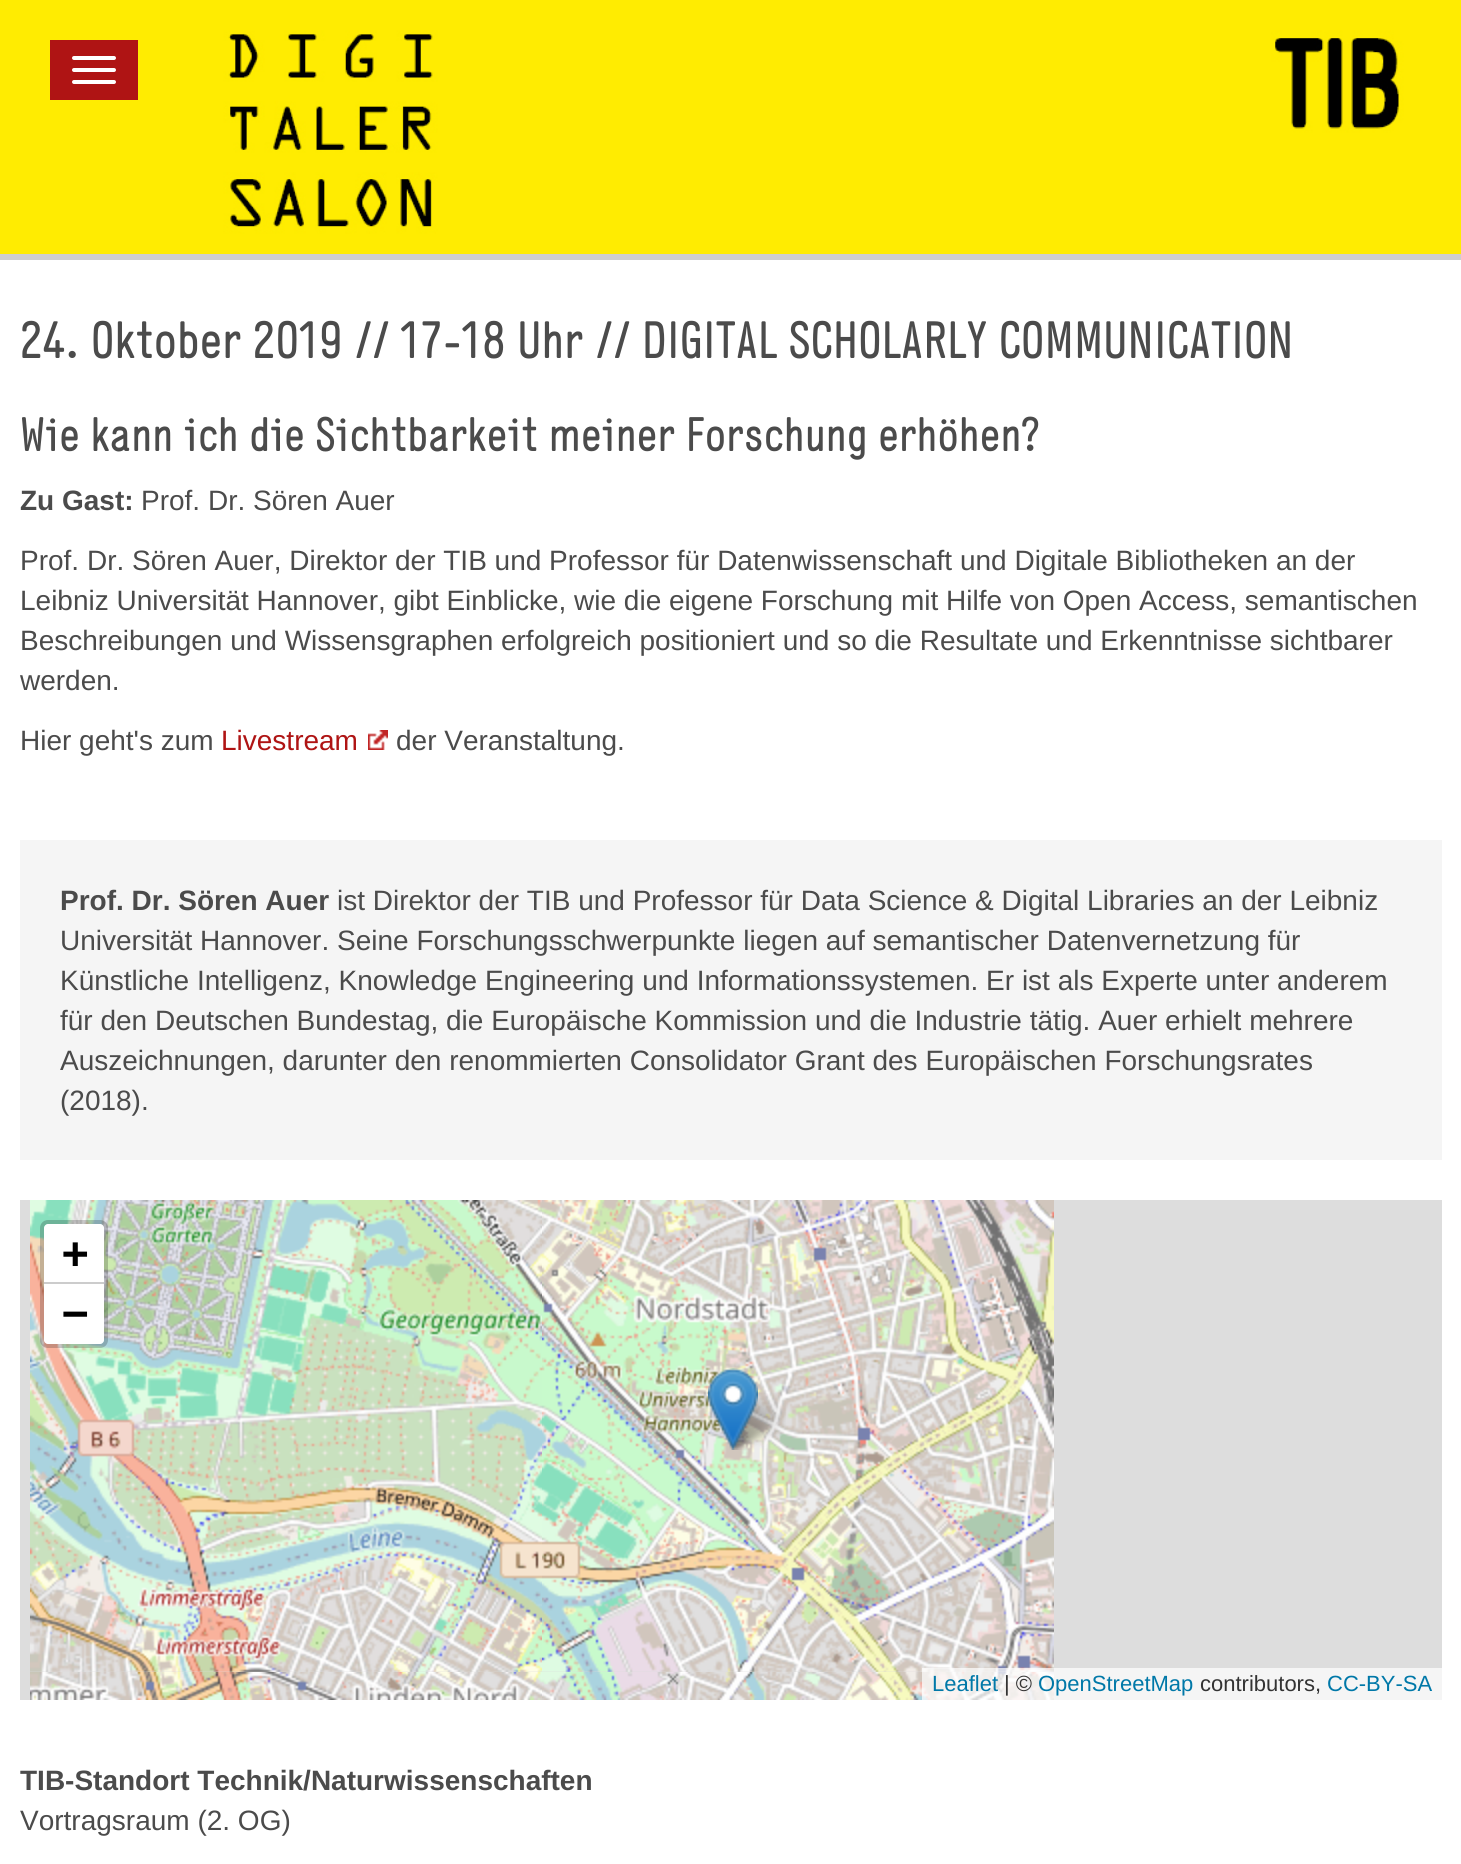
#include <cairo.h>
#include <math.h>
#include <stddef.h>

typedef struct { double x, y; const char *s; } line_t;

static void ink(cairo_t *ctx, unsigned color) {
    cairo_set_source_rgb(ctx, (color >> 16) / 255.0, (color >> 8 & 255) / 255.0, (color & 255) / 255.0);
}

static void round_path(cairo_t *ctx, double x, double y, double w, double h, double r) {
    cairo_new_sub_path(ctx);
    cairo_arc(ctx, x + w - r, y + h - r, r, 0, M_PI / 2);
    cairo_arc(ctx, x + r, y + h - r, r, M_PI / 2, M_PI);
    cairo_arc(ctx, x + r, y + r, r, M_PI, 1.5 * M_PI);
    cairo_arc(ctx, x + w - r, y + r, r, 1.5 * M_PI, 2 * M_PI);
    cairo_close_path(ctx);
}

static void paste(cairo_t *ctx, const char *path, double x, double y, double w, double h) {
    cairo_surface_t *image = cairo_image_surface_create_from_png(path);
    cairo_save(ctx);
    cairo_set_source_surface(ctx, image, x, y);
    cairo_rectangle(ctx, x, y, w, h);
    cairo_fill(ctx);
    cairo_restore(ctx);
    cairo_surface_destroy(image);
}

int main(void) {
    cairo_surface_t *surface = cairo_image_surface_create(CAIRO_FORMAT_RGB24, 1461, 1864);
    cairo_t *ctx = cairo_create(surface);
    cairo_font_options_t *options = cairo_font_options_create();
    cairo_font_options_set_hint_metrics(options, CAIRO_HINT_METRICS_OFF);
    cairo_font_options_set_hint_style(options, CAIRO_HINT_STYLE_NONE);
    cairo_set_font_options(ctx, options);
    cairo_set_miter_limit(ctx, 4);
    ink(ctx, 0xFFFFFF);
    cairo_paint(ctx);
    ink(ctx, 0xCECECE);
    cairo_rectangle(ctx, 0, 254, 1461, 6);
    cairo_fill(ctx);
    paste(ctx, "media/1.png", 0, 0, 1461, 254);
    ink(ctx, 0xAF1414);
    cairo_rectangle(ctx, 50, 40, 88, 60);
    cairo_fill(ctx);
    ink(ctx, 0xFFFFFF);
    round_path(ctx, 72, 56, 44, 4, 2);
    cairo_fill(ctx);
    round_path(ctx, 72, 68, 44, 4, 2);
    cairo_fill(ctx);
    round_path(ctx, 72, 80, 44, 4, 2);
    cairo_fill(ctx);
    cairo_select_font_face(ctx, "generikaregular", CAIRO_FONT_SLANT_NORMAL, CAIRO_FONT_WEIGHT_NORMAL);
    cairo_set_font_size(ctx, 52);
    ink(ctx, 0x4B4B4B);
    cairo_move_to(ctx, 20, 358);
    cairo_show_text(ctx, "24. Oktober 2019 // 17-18 Uhr // DIGITAL SCHOLARLY COMMUNICATION");
    cairo_set_font_size(ctx, 48);
    cairo_move_to(ctx, 20, 451);
    cairo_show_text(ctx, "Wie kann ich die Sichtbarkeit meiner Forschung erhöhen?");
    cairo_select_font_face(ctx, "Liberation Sans", CAIRO_FONT_SLANT_NORMAL, CAIRO_FONT_WEIGHT_BOLD);
    cairo_set_font_size(ctx, 28);
    cairo_move_to(ctx, 20, 510);
    cairo_show_text(ctx, "Zu Gast:");
    cairo_select_font_face(ctx, "Liberation Sans", CAIRO_FONT_SLANT_NORMAL, CAIRO_FONT_WEIGHT_NORMAL);
    {
        static const line_t items[] = {
            {141, 510, "Prof. Dr. Sören Auer"},
            {20, 570, "Prof. Dr. Sören Auer, Direktor der TIB und Professor für Datenwissenschaft und Digitale Bibliotheken an der"},
            {20, 610, "Leibniz Universität Hannover, gibt Einblicke, wie die eigene Forschung mit Hilfe von Open Access, semantischen"},
            {20, 650, "Beschreibungen und Wissensgraphen erfolgreich positioniert und so die Resultate und Erkenntnisse sichtbarer"},
            {20, 690, "werden."},
            {20, 750, "Hier geht's zum"},
        };
        for (size_t i = 0; i < sizeof items / sizeof *items; i++) {
            cairo_move_to(ctx, items[i].x, items[i].y);
            cairo_show_text(ctx, items[i].s);
        }
    }
    ink(ctx, 0xAF1414);
    cairo_move_to(ctx, 221, 750);
    cairo_show_text(ctx, "Livestream");
    paste(ctx, "media/2.png", 368, 730, 20, 20);
    ink(ctx, 0x4B4B4B);
    cairo_move_to(ctx, 396, 750);
    cairo_show_text(ctx, "der Veranstaltung.");
    ink(ctx, 0xF5F5F5);
    cairo_rectangle(ctx, 20, 840, 1422, 320);
    cairo_fill(ctx);
    cairo_select_font_face(ctx, "Liberation Sans", CAIRO_FONT_SLANT_NORMAL, CAIRO_FONT_WEIGHT_BOLD);
    ink(ctx, 0x4B4B4B);
    cairo_move_to(ctx, 60, 910);
    cairo_show_text(ctx, "Prof. Dr. Sören Auer");
    cairo_select_font_face(ctx, "Liberation Sans", CAIRO_FONT_SLANT_NORMAL, CAIRO_FONT_WEIGHT_NORMAL);
    {
        static const line_t items[] = {
            {337, 910, "ist Direktor der TIB und Professor für Data Science & Digital Libraries an der Leibniz"},
            {60, 950, "Universität Hannover. Seine Forschungsschwerpunkte liegen auf semantischer Datenvernetzung für"},
            {60, 990, "Künstliche Intelligenz, Knowledge Engineering und Informationssystemen. Er ist als Experte unter anderem"},
            {60, 1030, "für den Deutschen Bundestag, die Europäische Kommission und die Industrie tätig. Auer erhielt mehrere"},
            {60, 1070, "Auszeichnungen, darunter den renommierten Consolidator Grant des Europäischen Forschungsrates"},
            {60, 1110, "(2018)."},
        };
        for (size_t i = 0; i < sizeof items / sizeof *items; i++) {
            cairo_move_to(ctx, items[i].x, items[i].y);
            cairo_show_text(ctx, items[i].s);
        }
    }
    ink(ctx, 0xDDDDDD);
    cairo_rectangle(ctx, 20, 1200, 1422, 500);
    cairo_fill(ctx);
    paste(ctx, "media/3.png", 30, 1200, 512, 472);
    paste(ctx, "media/4.png", 542, 1200, 512, 472);
    paste(ctx, "media/5.png", 30, 1672, 512, 28);
    paste(ctx, "media/6.png", 542, 1672, 512, 28);
    paste(ctx, "media/8.png", 726, 1393, 60, 57);
    paste(ctx, "media/7.png", 708, 1368, 50, 82);
    round_path(ctx, 42, 1222, 64, 124, 6);
    cairo_set_source_rgba(ctx, 0, 0, 0, 0.2);
    cairo_set_line_width(ctx, 4);
    cairo_stroke(ctx);
    ink(ctx, 0xFFFFFF);
    cairo_new_path(ctx);
    cairo_move_to(ctx, 48, 1224);
    cairo_line_to(ctx, 100, 1224);
    cairo_curve_to(ctx, 102, 1224, 104, 1226, 104, 1228);
    cairo_line_to(ctx, 104, 1284);
    cairo_line_to(ctx, 44, 1284);
    cairo_line_to(ctx, 44, 1228);
    cairo_curve_to(ctx, 44, 1226, 46, 1224, 48, 1224);
    cairo_close_path(ctx);
    cairo_fill(ctx);
    ink(ctx, 0xCCCCCC);
    cairo_rectangle(ctx, 44, 1282, 60, 2);
    cairo_fill(ctx);
    cairo_select_font_face(ctx, "DejaVu Sans Mono", CAIRO_FONT_SLANT_NORMAL, CAIRO_FONT_WEIGHT_BOLD);
    cairo_set_font_size(ctx, 44);
    ink(ctx, 0x000000);
    cairo_move_to(ctx, 62, 1268);
    cairo_show_text(ctx, "+");
    ink(ctx, 0xFFFFFF);
    cairo_new_path(ctx);
    cairo_move_to(ctx, 44, 1284);
    cairo_line_to(ctx, 104, 1284);
    cairo_line_to(ctx, 104, 1340);
    cairo_curve_to(ctx, 104, 1342, 102, 1344, 100, 1344);
    cairo_line_to(ctx, 48, 1344);
    cairo_curve_to(ctx, 46, 1344, 44, 1342, 44, 1340);
    cairo_close_path(ctx);
    cairo_fill(ctx);
    ink(ctx, 0x000000);
    cairo_move_to(ctx, 62, 1328);
    cairo_show_text(ctx, "−");
    cairo_set_source_rgba(ctx, 1, 1, 1, 0.7);
    cairo_rectangle(ctx, 922, 1668, 520, 32);
    cairo_fill(ctx);
    cairo_select_font_face(ctx, "Liberation Sans", CAIRO_FONT_SLANT_NORMAL, CAIRO_FONT_WEIGHT_NORMAL);
    cairo_set_font_size(ctx, 22);
    ink(ctx, 0x0078A8);
    cairo_move_to(ctx, 932, 1691);
    cairo_show_text(ctx, "Leaflet");
    ink(ctx, 0x333333);
    cairo_move_to(ctx, 1004, 1691);
    cairo_show_text(ctx, "| ©");
    ink(ctx, 0x0078A8);
    cairo_move_to(ctx, 1038, 1691);
    cairo_show_text(ctx, "OpenStreetMap");
    ink(ctx, 0x333333);
    cairo_move_to(ctx, 1200, 1691);
    cairo_show_text(ctx, "contributors,");
    ink(ctx, 0x0078A8);
    cairo_move_to(ctx, 1327, 1691);
    cairo_show_text(ctx, "CC-BY-SA");
    cairo_select_font_face(ctx, "Liberation Sans", CAIRO_FONT_SLANT_NORMAL, CAIRO_FONT_WEIGHT_BOLD);
    cairo_set_font_size(ctx, 28);
    ink(ctx, 0x4B4B4B);
    cairo_move_to(ctx, 20, 1790);
    cairo_show_text(ctx, "TIB-Standort Technik/Naturwissenschaften");
    cairo_select_font_face(ctx, "Liberation Sans", CAIRO_FONT_SLANT_NORMAL, CAIRO_FONT_WEIGHT_NORMAL);
    cairo_move_to(ctx, 20, 1830);
    cairo_show_text(ctx, "Vortragsraum (2. OG)");
    cairo_surface_write_to_png(surface, "image.png");
    cairo_font_options_destroy(options);
    cairo_destroy(ctx);
    cairo_surface_destroy(surface);
    return 0;
}
